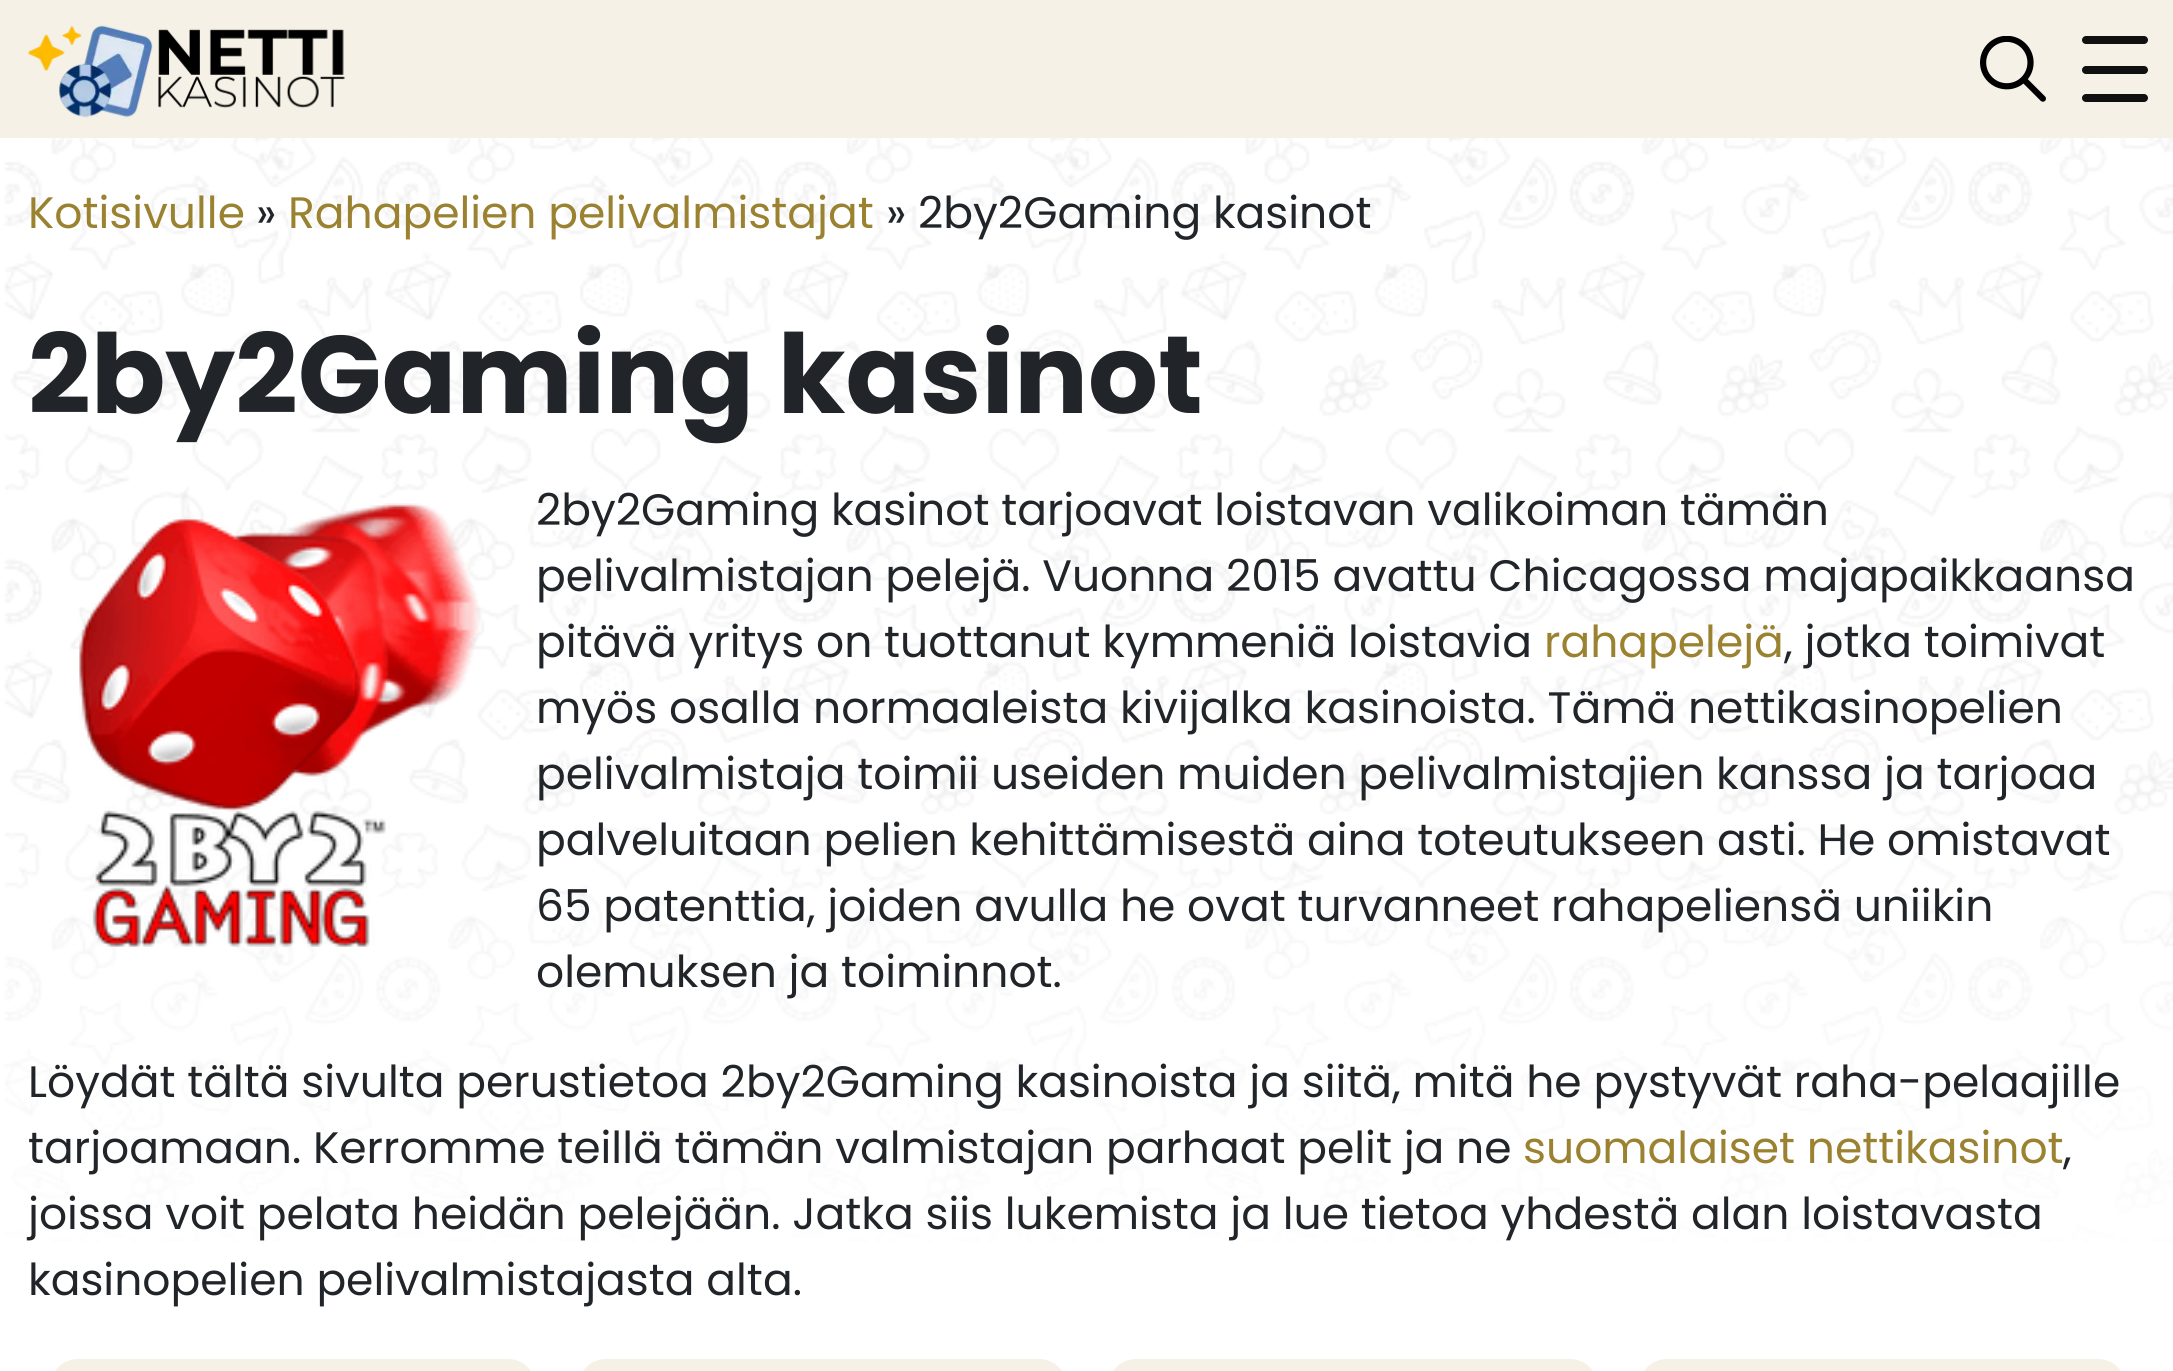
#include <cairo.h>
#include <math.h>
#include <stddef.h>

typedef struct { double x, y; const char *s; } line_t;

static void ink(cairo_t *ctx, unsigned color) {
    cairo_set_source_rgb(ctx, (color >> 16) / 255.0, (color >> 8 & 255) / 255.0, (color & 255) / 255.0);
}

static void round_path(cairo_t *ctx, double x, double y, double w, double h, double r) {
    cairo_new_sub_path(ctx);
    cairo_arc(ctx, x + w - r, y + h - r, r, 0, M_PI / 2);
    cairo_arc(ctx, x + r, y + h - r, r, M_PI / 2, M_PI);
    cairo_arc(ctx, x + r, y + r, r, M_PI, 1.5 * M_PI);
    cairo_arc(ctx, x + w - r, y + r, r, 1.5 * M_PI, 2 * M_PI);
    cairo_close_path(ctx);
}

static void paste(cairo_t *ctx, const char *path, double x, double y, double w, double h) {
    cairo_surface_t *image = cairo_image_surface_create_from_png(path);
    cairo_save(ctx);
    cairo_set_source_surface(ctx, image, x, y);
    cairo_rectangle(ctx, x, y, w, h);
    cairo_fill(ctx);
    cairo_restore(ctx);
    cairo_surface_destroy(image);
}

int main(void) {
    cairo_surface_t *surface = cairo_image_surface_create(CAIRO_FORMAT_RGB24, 2173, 1371);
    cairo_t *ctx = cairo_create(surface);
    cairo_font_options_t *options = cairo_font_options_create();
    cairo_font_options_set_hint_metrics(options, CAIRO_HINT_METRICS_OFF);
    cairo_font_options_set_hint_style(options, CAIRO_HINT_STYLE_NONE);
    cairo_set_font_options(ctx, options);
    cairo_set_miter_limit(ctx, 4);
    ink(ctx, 0xFFFFFF);
    cairo_paint(ctx);
    ink(ctx, 0xF5F1E6);
    cairo_rectangle(ctx, 0, 0, 2173, 138);
    cairo_fill(ctx);
    paste(ctx, "media/1.png", 28, 25, 317, 93);
    paste(ctx, "media/2.png", 1980, 36, 66, 66);
    ink(ctx, 0x101010);
    round_path(ctx, 2082, 36, 66, 8, 4);
    cairo_fill(ctx);
    round_path(ctx, 2082, 66, 66, 8, 4);
    cairo_fill(ctx);
    round_path(ctx, 2082, 94, 66, 8, 4);
    cairo_fill(ctx);
    paste(ctx, "media/3.png", 4, 138, 2169, 1104);
    cairo_select_font_face(ctx, "Poppins", CAIRO_FONT_SLANT_NORMAL, CAIRO_FONT_WEIGHT_NORMAL);
    cairo_set_font_size(ctx, 44);
    ink(ctx, 0x9A8231);
    cairo_move_to(ctx, 28, 228);
    cairo_show_text(ctx, "Kotisivulle");
    ink(ctx, 0x212529);
    cairo_move_to(ctx, 256, 228);
    cairo_show_text(ctx, "»");
    ink(ctx, 0x9A8231);
    cairo_move_to(ctx, 288, 228);
    cairo_show_text(ctx, "Rahapelien pelivalmistajat");
    ink(ctx, 0x212529);
    cairo_move_to(ctx, 886, 228);
    cairo_show_text(ctx, "» 2by2Gaming kasinot");
    cairo_select_font_face(ctx, "Poppins", CAIRO_FONT_SLANT_NORMAL, CAIRO_FONT_WEIGHT_BOLD);
    cairo_set_font_size(ctx, 110);
    cairo_move_to(ctx, 28, 413);
    cairo_show_text(ctx, "2by2Gaming kasinot");
    paste(ctx, "media/4.png", 79, 503, 401, 444);
    cairo_select_font_face(ctx, "Poppins", CAIRO_FONT_SLANT_NORMAL, CAIRO_FONT_WEIGHT_NORMAL);
    cairo_set_font_size(ctx, 44);
    {
        static const line_t items[] = {
            {536, 525, "2by2Gaming kasinot tarjoavat loistavan valikoiman tämän"},
            {536, 591, "pelivalmistajan pelejä. Vuonna 2015 avattu Chicagossa majapaikkaansa"},
            {536, 657, "pitävä yritys on tuottanut kymmeniä loistavia"},
        };
        for (size_t i = 0; i < sizeof items / sizeof *items; i++) {
            cairo_move_to(ctx, items[i].x, items[i].y);
            cairo_show_text(ctx, items[i].s);
        }
    }
    ink(ctx, 0x9A8231);
    cairo_move_to(ctx, 1544, 657);
    cairo_show_text(ctx, "rahapelejä");
    ink(ctx, 0x212529);
    {
        static const line_t items[] = {
            {1784, 657, ", jotka toimivat"},
            {536, 723, "myös osalla normaaleista kivijalka kasinoista. Tämä nettikasinopelien"},
            {536, 789, "pelivalmistaja toimii useiden muiden pelivalmistajien kanssa ja tarjoaa"},
            {536, 855, "palveluitaan pelien kehittämisestä aina toteutukseen asti. He omistavat"},
            {536, 921, "65 patenttia, joiden avulla he ovat turvanneet rahapeliensä uniikin"},
            {536, 987, "olemuksen ja toiminnot."},
            {28, 1097, "Löydät tältä sivulta perustietoa 2by2Gaming kasinoista ja siitä, mitä he pystyvät raha-pelaajille"},
            {28, 1163, "tarjoamaan. Kerromme teillä tämän valmistajan parhaat pelit ja ne"},
        };
        for (size_t i = 0; i < sizeof items / sizeof *items; i++) {
            cairo_move_to(ctx, items[i].x, items[i].y);
            cairo_show_text(ctx, items[i].s);
        }
    }
    ink(ctx, 0x9A8231);
    cairo_move_to(ctx, 1523, 1163);
    cairo_show_text(ctx, "suomalaiset nettikasinot");
    ink(ctx, 0x212529);
    {
        static const line_t items[] = {
            {2063, 1163, ","},
            {28, 1229, "joissa voit pelata heidän pelejään. Jatka siis lukemista ja lue tietoa yhdestä alan loistavasta"},
            {28, 1295, "kasinopelien pelivalmistajasta alta."},
        };
        for (size_t i = 0; i < sizeof items / sizeof *items; i++) {
            cairo_move_to(ctx, items[i].x, items[i].y);
            cairo_show_text(ctx, items[i].s);
        }
    }
    ink(ctx, 0xF5F1E6);
    round_path(ctx, 50, 1359, 486, 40, 28);
    cairo_fill(ctx);
    round_path(ctx, 578, 1359, 489, 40, 28);
    cairo_fill(ctx);
    round_path(ctx, 1108, 1359, 490, 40, 28);
    cairo_fill(ctx);
    round_path(ctx, 1639, 1359, 487, 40, 28);
    cairo_fill(ctx);
    cairo_surface_write_to_png(surface, "image.png");
    cairo_font_options_destroy(options);
    cairo_destroy(ctx);
    cairo_surface_destroy(surface);
    return 0;
}
